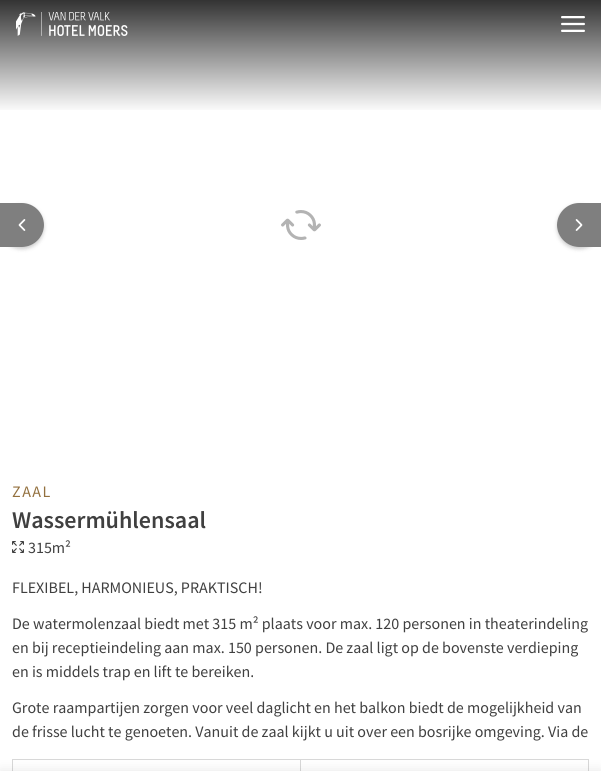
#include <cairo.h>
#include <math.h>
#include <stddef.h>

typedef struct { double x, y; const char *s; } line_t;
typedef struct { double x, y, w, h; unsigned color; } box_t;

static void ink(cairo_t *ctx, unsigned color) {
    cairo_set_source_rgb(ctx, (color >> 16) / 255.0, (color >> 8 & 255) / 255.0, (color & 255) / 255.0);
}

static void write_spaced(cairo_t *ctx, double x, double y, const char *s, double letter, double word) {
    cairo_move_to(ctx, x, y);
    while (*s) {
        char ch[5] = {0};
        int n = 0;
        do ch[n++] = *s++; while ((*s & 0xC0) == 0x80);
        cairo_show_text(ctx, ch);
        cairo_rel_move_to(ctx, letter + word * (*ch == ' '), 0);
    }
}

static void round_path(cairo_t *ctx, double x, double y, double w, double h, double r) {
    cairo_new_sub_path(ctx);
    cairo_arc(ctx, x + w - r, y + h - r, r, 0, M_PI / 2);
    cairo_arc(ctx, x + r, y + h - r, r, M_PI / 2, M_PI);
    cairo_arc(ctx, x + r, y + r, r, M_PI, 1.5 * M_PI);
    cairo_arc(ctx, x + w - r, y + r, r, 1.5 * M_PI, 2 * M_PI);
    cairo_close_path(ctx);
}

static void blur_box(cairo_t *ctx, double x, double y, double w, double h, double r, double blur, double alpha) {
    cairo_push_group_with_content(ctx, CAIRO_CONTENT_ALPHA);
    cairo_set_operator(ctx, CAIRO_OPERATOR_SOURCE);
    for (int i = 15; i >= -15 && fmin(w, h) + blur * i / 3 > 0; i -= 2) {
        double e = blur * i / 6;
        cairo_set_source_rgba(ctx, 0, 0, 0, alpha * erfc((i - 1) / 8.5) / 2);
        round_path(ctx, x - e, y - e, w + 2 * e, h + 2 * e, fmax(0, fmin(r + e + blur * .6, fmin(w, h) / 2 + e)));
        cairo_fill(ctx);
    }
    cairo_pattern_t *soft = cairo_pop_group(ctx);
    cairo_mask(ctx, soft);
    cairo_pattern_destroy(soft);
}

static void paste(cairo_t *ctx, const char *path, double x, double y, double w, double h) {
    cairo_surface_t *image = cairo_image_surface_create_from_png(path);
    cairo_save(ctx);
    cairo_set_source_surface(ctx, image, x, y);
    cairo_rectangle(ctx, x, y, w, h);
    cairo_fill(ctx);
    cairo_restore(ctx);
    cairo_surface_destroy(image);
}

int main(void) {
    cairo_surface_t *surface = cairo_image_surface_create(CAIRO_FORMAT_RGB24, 601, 771);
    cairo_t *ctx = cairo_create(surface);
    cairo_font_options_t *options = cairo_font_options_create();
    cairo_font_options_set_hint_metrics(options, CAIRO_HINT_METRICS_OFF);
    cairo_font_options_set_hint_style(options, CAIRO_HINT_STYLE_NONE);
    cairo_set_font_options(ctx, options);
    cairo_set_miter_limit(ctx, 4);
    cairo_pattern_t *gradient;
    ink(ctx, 0xFFFFFF);
    cairo_paint(ctx);
    gradient = cairo_pattern_create_linear(301, 0, 301, 451);
    cairo_pattern_add_color_stop_rgba(gradient, 0, 0, 0, 0, 0.8);
    cairo_pattern_add_color_stop_rgba(gradient, 0.25, 0, 0, 0, 0);
    cairo_set_source(ctx, gradient);
    cairo_pattern_destroy(gradient);
    cairo_rectangle(ctx, 0, 0, 601, 110);
    cairo_fill(ctx);
    paste(ctx, "media/1.png", 16, 12, 112, 24);
    paste(ctx, "media/2.png", 561, 16, 24, 16);
    {
        static const box_t items[] = {
            {12, 759, 577, 1, 0xD8D8D8},
            {12, 759, 1, 12, 0xD8D8D8},
            {300, 760, 1, 11, 0xD8D8D8},
            {588, 760, 1, 11, 0xD8D8D8},
        };
        for (size_t i = 0; i < sizeof items / sizeof *items; i++) {
            ink(ctx, items[i].color);
            cairo_rectangle(ctx, items[i].x, items[i].y, items[i].w, items[i].h);
            cairo_fill(ctx);
        }
    }
    ink(ctx, 0x000000);
    blur_box(ctx, 0, 771, 601, 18, 0, 6, 0.1);
    paste(ctx, "media/3.png", 281, 210, 40, 30);
    cairo_save(ctx);
    cairo_set_fill_rule(ctx, CAIRO_FILL_RULE_EVEN_ODD);
    cairo_new_path(ctx);
    cairo_move_to(ctx, 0, 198);
    cairo_line_to(ctx, 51, 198);
    cairo_line_to(ctx, 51, 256);
    cairo_line_to(ctx, 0, 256);
    cairo_close_path(ctx);
    cairo_move_to(ctx, 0, 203);
    cairo_line_to(ctx, 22, 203);
    cairo_curve_to(ctx, 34, 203, 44, 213, 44, 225);
    cairo_curve_to(ctx, 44, 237, 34, 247, 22, 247);
    cairo_line_to(ctx, 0, 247);
    cairo_close_path(ctx);
    cairo_clip(ctx);
    blur_box(ctx, 0, 205, 44, 44, 22, 2, 0.2);
    cairo_restore(ctx);
    cairo_set_source_rgba(ctx, 0, 0, 0, 0.5);
    cairo_new_path(ctx);
    cairo_move_to(ctx, 0, 203);
    cairo_line_to(ctx, 22, 203);
    cairo_curve_to(ctx, 34, 203, 44, 213, 44, 225);
    cairo_curve_to(ctx, 44, 237, 34, 247, 22, 247);
    cairo_line_to(ctx, 0, 247);
    cairo_close_path(ctx);
    cairo_fill(ctx);
    paste(ctx, "media/4.png", 18, 219, 8, 12);
    cairo_save(ctx);
    cairo_set_fill_rule(ctx, CAIRO_FILL_RULE_EVEN_ODD);
    cairo_new_path(ctx);
    cairo_move_to(ctx, 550, 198);
    cairo_line_to(ctx, 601, 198);
    cairo_line_to(ctx, 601, 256);
    cairo_line_to(ctx, 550, 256);
    cairo_close_path(ctx);
    cairo_move_to(ctx, 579, 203);
    cairo_line_to(ctx, 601, 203);
    cairo_line_to(ctx, 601, 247);
    cairo_line_to(ctx, 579, 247);
    cairo_curve_to(ctx, 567, 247, 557, 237, 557, 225);
    cairo_curve_to(ctx, 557, 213, 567, 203, 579, 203);
    cairo_close_path(ctx);
    cairo_clip(ctx);
    ink(ctx, 0x000000);
    blur_box(ctx, 557, 205, 44, 44, 22, 2, 0.2);
    cairo_restore(ctx);
    cairo_new_path(ctx);
    cairo_move_to(ctx, 579, 203);
    cairo_line_to(ctx, 601, 203);
    cairo_line_to(ctx, 601, 247);
    cairo_line_to(ctx, 579, 247);
    cairo_curve_to(ctx, 567, 247, 557, 237, 557, 225);
    cairo_curve_to(ctx, 557, 213, 567, 203, 579, 203);
    cairo_close_path(ctx);
    cairo_fill(ctx);
    paste(ctx, "media/5.png", 575, 219, 8, 12);
    cairo_select_font_face(ctx, "Source Sans Pro", CAIRO_FONT_SLANT_NORMAL, CAIRO_FONT_WEIGHT_NORMAL);
    cairo_set_font_size(ctx, 16);
    ink(ctx, 0x93703E);
    write_spaced(ctx, 12, 497, "ZAAL", 1.5, 0);
    cairo_select_font_face(ctx, "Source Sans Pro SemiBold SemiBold", CAIRO_FONT_SLANT_NORMAL, CAIRO_FONT_WEIGHT_NORMAL);
    cairo_set_font_size(ctx, 24);
    ink(ctx, 0x404040);
    cairo_move_to(ctx, 12, 528);
    cairo_show_text(ctx, "Wassermühlensaal");
    paste(ctx, "media/6.png", 12, 541, 12, 12);
    cairo_select_font_face(ctx, "Source Sans Pro", CAIRO_FONT_SLANT_NORMAL, CAIRO_FONT_WEIGHT_NORMAL);
    cairo_set_font_size(ctx, 16);
    {
        static const line_t items[] = {
            {28, 553, "315m²"},
            {12, 593, "FLEXIBEL, HARMONIEUS, PRAKTISCH!"},
            {12, 629, "De watermolenzaal biedt met 315 m² plaats voor max. 120 personen in theaterindeling"},
            {12, 653, "en bij receptieindeling aan max. 150 personen. De zaal ligt op de bovenste verdieping"},
            {12, 677, "en is middels trap en lift te bereiken."},
            {12, 713, "Grote raampartijen zorgen voor veel daglicht en het balkon biedt de mogelijkheid van"},
            {12, 737, "de frisse lucht te genoeten. Vanuit de zaal kijkt u uit over een bosrijke omgeving. Via de"},
        };
        for (size_t i = 0; i < sizeof items / sizeof *items; i++) {
            cairo_move_to(ctx, items[i].x, items[i].y);
            cairo_show_text(ctx, items[i].s);
        }
    }
    cairo_surface_write_to_png(surface, "image.png");
    cairo_font_options_destroy(options);
    cairo_destroy(ctx);
    cairo_surface_destroy(surface);
    return 0;
}
